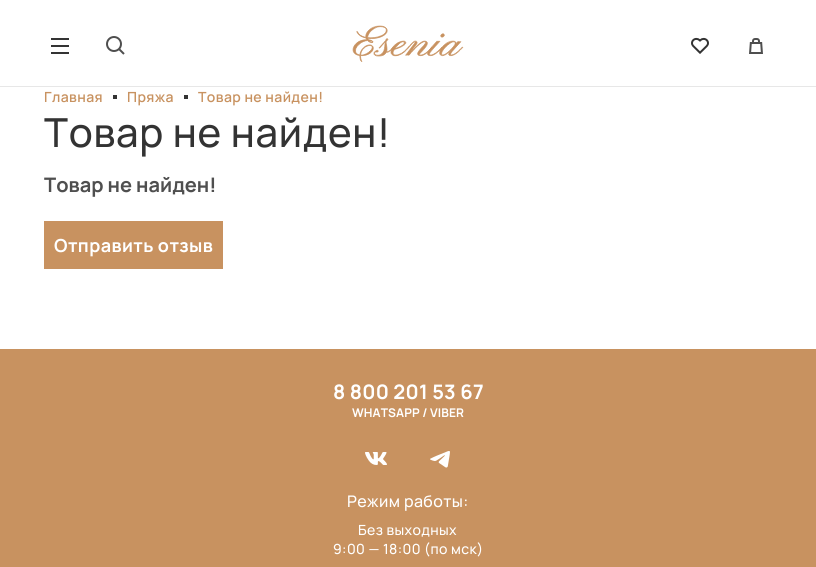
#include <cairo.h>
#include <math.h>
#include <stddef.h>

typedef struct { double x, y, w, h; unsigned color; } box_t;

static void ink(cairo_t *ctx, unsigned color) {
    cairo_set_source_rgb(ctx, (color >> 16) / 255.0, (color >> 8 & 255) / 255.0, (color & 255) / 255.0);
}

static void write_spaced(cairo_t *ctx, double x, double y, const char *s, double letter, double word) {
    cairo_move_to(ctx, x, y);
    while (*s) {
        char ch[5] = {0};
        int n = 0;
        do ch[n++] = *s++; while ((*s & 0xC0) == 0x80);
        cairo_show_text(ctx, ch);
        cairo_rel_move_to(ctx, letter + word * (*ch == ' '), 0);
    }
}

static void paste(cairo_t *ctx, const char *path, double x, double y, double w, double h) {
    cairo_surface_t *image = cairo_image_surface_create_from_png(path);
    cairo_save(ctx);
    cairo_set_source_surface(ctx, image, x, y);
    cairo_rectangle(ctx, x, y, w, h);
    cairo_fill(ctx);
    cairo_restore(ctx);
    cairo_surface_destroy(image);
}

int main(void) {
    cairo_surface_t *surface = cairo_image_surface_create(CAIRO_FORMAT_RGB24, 816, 567);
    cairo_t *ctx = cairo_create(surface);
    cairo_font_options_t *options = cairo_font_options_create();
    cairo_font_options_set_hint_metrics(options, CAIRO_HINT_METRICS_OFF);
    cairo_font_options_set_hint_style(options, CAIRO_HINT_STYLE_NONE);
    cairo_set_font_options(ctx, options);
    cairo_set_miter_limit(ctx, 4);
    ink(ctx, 0xFFFFFF);
    cairo_paint(ctx);
    {
        static const box_t items[] = {
            {0, 86, 816, 1, 0xE7E7E7},
            {51, 38, 18, 2, 0x333333},
            {51, 45, 18, 2, 0x333333},
            {51, 52, 18, 2, 0x333333},
        };
        for (size_t i = 0; i < sizeof items / sizeof *items; i++) {
            ink(ctx, items[i].color);
            cairo_rectangle(ctx, items[i].x, items[i].y, items[i].w, items[i].h);
            cairo_fill(ctx);
        }
    }
    cairo_arc(ctx, 114, 44, 7, 0, 2 * M_PI);
    ink(ctx, 0x4F4F4F);
    cairo_stroke(ctx);
    cairo_new_path(ctx);
    cairo_move_to(ctx, 119, 49);
    cairo_line_to(ctx, 124, 54);
    cairo_stroke(ctx);
    paste(ctx, "media/1.png", 352, 25, 112, 37);
    paste(ctx, "media/2.png", 691, 37, 18, 17);
    paste(ctx, "media/3.png", 749, 38, 14, 16);
    cairo_select_font_face(ctx, "Manrope SemiBold", CAIRO_FONT_SLANT_NORMAL, CAIRO_FONT_WEIGHT_NORMAL);
    cairo_set_font_size(ctx, 14);
    ink(ctx, 0xC89260);
    write_spaced(ctx, 44, 102, "Главная", 0.4, 0);
    ink(ctx, 0x333333);
    cairo_rectangle(ctx, 113, 95, 4, 4);
    cairo_fill(ctx);
    ink(ctx, 0xC89260);
    write_spaced(ctx, 127, 102, "Пряжа", 0.4, 0);
    ink(ctx, 0x333333);
    cairo_rectangle(ctx, 184, 95, 4, 4);
    cairo_fill(ctx);
    ink(ctx, 0xC89260);
    write_spaced(ctx, 198, 102, "Товар не найден!", 0.4, 0);
    cairo_select_font_face(ctx, "Manrope Medium", CAIRO_FONT_SLANT_NORMAL, CAIRO_FONT_WEIGHT_NORMAL);
    cairo_set_font_size(ctx, 40);
    ink(ctx, 0x333333);
    write_spaced(ctx, 44, 147, "Товар не найден!", 0.75, 0);
    cairo_select_font_face(ctx, "Manrope", CAIRO_FONT_SLANT_NORMAL, CAIRO_FONT_WEIGHT_BOLD);
    cairo_set_font_size(ctx, 20);
    ink(ctx, 0x4F4F4F);
    cairo_move_to(ctx, 44, 192);
    cairo_show_text(ctx, "Товар не найден!");
    ink(ctx, 0xC89260);
    cairo_rectangle(ctx, 44, 221, 179, 48);
    cairo_fill(ctx);
    cairo_set_font_size(ctx, 18);
    ink(ctx, 0xFFFFFF);
    write_spaced(ctx, 54, 252, "Отправить отзыв", 0.4, 0);
    ink(ctx, 0xC89260);
    cairo_rectangle(ctx, 0, 349, 816, 218);
    cairo_fill(ctx);
    cairo_set_font_size(ctx, 20);
    ink(ctx, 0xFFFFFF);
    write_spaced(ctx, 333, 399, "8 800 201 53 67", 0.25, 0);
    cairo_set_font_size(ctx, 12);
    write_spaced(ctx, 352, 417, "WHATSAPP / VIBER", 0.1, 0);
    paste(ctx, "media/4.png", 365, 452, 22, 13);
    paste(ctx, "media/5.png", 430, 451, 20, 17);
    cairo_select_font_face(ctx, "Manrope Medium", CAIRO_FONT_SLANT_NORMAL, CAIRO_FONT_WEIGHT_NORMAL);
    cairo_set_font_size(ctx, 16);
    write_spaced(ctx, 347, 507, "Режим работы:", 0.4, 0);
    cairo_set_font_size(ctx, 14);
    write_spaced(ctx, 358, 535, "Без выходных", 0.4, 0);
    write_spaced(ctx, 333, 554, "9:00 — 18:00 (по мск)", 0.4, 0);
    cairo_surface_write_to_png(surface, "image.png");
    cairo_font_options_destroy(options);
    cairo_destroy(ctx);
    cairo_surface_destroy(surface);
    return 0;
}
